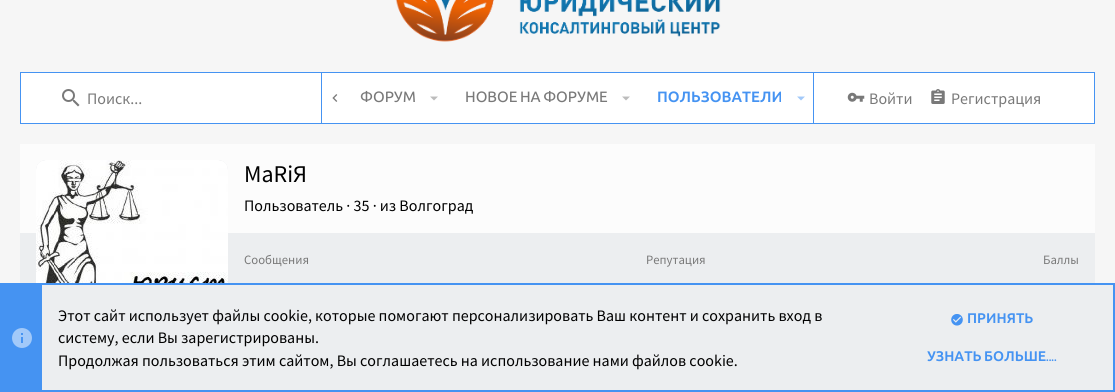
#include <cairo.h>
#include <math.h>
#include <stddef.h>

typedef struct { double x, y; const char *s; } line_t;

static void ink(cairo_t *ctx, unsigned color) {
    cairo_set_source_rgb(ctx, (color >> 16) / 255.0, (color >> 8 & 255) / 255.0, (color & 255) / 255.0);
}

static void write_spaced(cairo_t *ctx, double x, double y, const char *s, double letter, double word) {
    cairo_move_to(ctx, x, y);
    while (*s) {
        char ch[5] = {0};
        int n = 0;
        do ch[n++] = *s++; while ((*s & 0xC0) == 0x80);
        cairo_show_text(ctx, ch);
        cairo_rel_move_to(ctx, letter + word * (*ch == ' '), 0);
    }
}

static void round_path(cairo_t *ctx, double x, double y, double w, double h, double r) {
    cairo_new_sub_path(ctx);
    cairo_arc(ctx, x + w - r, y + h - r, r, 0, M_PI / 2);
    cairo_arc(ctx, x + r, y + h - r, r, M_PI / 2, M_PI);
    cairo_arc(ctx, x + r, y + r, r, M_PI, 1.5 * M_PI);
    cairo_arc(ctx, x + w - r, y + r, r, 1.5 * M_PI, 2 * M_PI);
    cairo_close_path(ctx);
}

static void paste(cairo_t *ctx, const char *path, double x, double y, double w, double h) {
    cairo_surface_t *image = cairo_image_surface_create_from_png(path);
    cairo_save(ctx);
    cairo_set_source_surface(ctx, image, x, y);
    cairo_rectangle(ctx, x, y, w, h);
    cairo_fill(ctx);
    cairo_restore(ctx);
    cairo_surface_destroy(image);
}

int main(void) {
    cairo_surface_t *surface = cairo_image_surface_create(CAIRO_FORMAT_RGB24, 1115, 392);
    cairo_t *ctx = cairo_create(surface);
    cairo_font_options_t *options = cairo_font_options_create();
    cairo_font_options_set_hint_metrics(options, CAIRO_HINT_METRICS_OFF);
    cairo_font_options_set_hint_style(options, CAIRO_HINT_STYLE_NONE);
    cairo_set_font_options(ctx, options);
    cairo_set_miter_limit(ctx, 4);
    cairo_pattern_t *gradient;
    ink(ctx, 0xF6F6F6);
    cairo_paint(ctx);
    paste(ctx, "media/1.png", 395, 0, 326, 42);
    ink(ctx, 0xFFFFFF);
    cairo_rectangle(ctx, 20.5, 72.5, 1074, 51);
    cairo_fill_preserve(ctx);
    ink(ctx, 0x4593F2);
    cairo_set_line_width(ctx, 1);
    cairo_stroke(ctx);
    paste(ctx, "media/2.png", 62, 89, 18, 18);
    cairo_select_font_face(ctx, "Source Sans Pro", CAIRO_FONT_SLANT_NORMAL, CAIRO_FONT_WEIGHT_NORMAL);
    cairo_set_font_size(ctx, 16);
    ink(ctx, 0x797979);
    cairo_move_to(ctx, 87, 104);
    cairo_show_text(ctx, "Поиск...");
    ink(ctx, 0x4593F2);
    cairo_rectangle(ctx, 813, 73, 1, 50);
    cairo_fill(ctx);
    cairo_rectangle(ctx, 321, 73, 1, 50);
    cairo_fill(ctx);
    cairo_select_font_face(ctx, "Ubuntu Medium", CAIRO_FONT_SLANT_NORMAL, CAIRO_FONT_WEIGHT_NORMAL);
    cairo_set_font_size(ctx, 15);
    ink(ctx, 0x797979);
    cairo_move_to(ctx, 360, 102);
    cairo_show_text(ctx, "ФОРУМ");
    gradient = cairo_pattern_create_linear(322, 98, 362, 98);
    cairo_pattern_add_color_stop_rgba(gradient, 0.66, 1, 1, 1, 1);
    cairo_pattern_add_color_stop_rgba(gradient, 1, 1, 1, 1, 0);
    cairo_set_source(ctx, gradient);
    cairo_pattern_destroy(gradient);
    cairo_rectangle(ctx, 361, 94, 1, 5);
    cairo_fill(ctx);
    paste(ctx, "media/3.png", 332, 94, 6, 8);
    ink(ctx, 0xBCBCBC);
    cairo_new_path(ctx);
    cairo_move_to(ctx, 430, 96.5);
    cairo_line_to(ctx, 434, 100.5);
    cairo_line_to(ctx, 438, 96.5);
    cairo_close_path(ctx);
    cairo_fill(ctx);
    ink(ctx, 0x797979);
    write_spaced(ctx, 465, 102, "НОВОЕ НА ФОРУМЕ", 0, -1);
    ink(ctx, 0xBCBCBC);
    cairo_new_path(ctx);
    cairo_move_to(ctx, 622, 96.5);
    cairo_line_to(ctx, 626, 100.5);
    cairo_line_to(ctx, 630, 96.5);
    cairo_close_path(ctx);
    cairo_fill(ctx);
    cairo_select_font_face(ctx, "Ubuntu", CAIRO_FONT_SLANT_NORMAL, CAIRO_FONT_WEIGHT_BOLD);
    ink(ctx, 0x4593F2);
    cairo_move_to(ctx, 657, 102);
    cairo_show_text(ctx, "ПОЛЬЗОВАТЕЛИ");
    ink(ctx, 0xA2C9F9);
    cairo_new_path(ctx);
    cairo_move_to(ctx, 797, 96.5);
    cairo_line_to(ctx, 801, 100.5);
    cairo_line_to(ctx, 805, 96.5);
    cairo_close_path(ctx);
    cairo_fill(ctx);
    paste(ctx, "media/4.png", 847, 92, 18, 10);
    cairo_select_font_face(ctx, "Source Sans Pro", CAIRO_FONT_SLANT_NORMAL, CAIRO_FONT_WEIGHT_NORMAL);
    cairo_set_font_size(ctx, 16);
    ink(ctx, 0x797979);
    cairo_move_to(ctx, 869, 104);
    cairo_show_text(ctx, "Войти");
    paste(ctx, "media/5.png", 931, 89, 14, 15);
    cairo_move_to(ctx, 951, 104);
    cairo_show_text(ctx, "Регистрация");
    ink(ctx, 0xECEEF0);
    cairo_rectangle(ctx, 20, 233, 1075, 50);
    cairo_fill(ctx);
    ink(ctx, 0xFCFCFC);
    cairo_rectangle(ctx, 20, 144, 1075, 89);
    cairo_fill(ctx);
    ink(ctx, 0xECEEF0);
    round_path(ctx, 36, 160, 192, 192, 10);
    cairo_fill(ctx);
    paste(ctx, "media/6.png", 36, 160, 192, 123);
    cairo_set_font_size(ctx, 24);
    ink(ctx, 0x010101);
    cairo_move_to(ctx, 244, 182);
    cairo_show_text(ctx, "MaRiЯ");
    cairo_set_font_size(ctx, 16);
    cairo_move_to(ctx, 244, 211);
    cairo_show_text(ctx, "Пользователь · 35 · из Волгоград");
    cairo_set_font_size(ctx, 12.75);
    ink(ctx, 0x797979);
    {
        static const line_t items[] = {
            {244, 264, "Сообщения"},
            {646, 264, "Репутация"},
            {1043, 264, "Баллы"},
        };
        for (size_t i = 0; i < sizeof items / sizeof *items; i++) {
            cairo_move_to(ctx, items[i].x, items[i].y);
            cairo_show_text(ctx, items[i].s);
        }
    }
    ink(ctx, 0xECEEF0);
    cairo_rectangle(ctx, 42, 285, 1071, 105);
    cairo_fill(ctx);
    cairo_rectangle(ctx, 1, 284, 1113, 107);
    ink(ctx, 0x4593F2);
    cairo_set_line_width(ctx, 2);
    cairo_stroke(ctx);
    cairo_rectangle(ctx, 2, 285, 40, 105);
    cairo_fill(ctx);
    paste(ctx, "media/7.png", 12, 328, 20, 20);
    cairo_set_font_size(ctx, 16);
    ink(ctx, 0x010101);
    {
        static const line_t items[] = {
            {58, 321, "Этот сайт использует файлы cookie, которые помогают персонализировать Ваш контент и сохранить вход в"},
            {58, 343, "систему, если Вы зарегистрированы."},
            {58, 366, "Продолжая пользоваться этим сайтом, Вы соглашаетесь на использование нами файлов cookie."},
        };
        for (size_t i = 0; i < sizeof items / sizeof *items; i++) {
            cairo_move_to(ctx, items[i].x, items[i].y);
            cairo_show_text(ctx, items[i].s);
        }
    }
    paste(ctx, "media/8.png", 951, 314, 12, 12);
    cairo_select_font_face(ctx, "Ubuntu", CAIRO_FONT_SLANT_NORMAL, CAIRO_FONT_WEIGHT_BOLD);
    cairo_set_font_size(ctx, 14);
    ink(ctx, 0x4593F2);
    cairo_move_to(ctx, 967, 323);
    cairo_show_text(ctx, "ПРИНЯТЬ");
    write_spaced(ctx, 927, 361, "УЗНАТЬ БОЛЬШЕ", 0, -1);
    cairo_select_font_face(ctx, "Abhaya Libre", CAIRO_FONT_SLANT_NORMAL, CAIRO_FONT_WEIGHT_BOLD);
    cairo_move_to(ctx, 1046, 361);
    cairo_show_text(ctx, "....");
    cairo_surface_write_to_png(surface, "image.png");
    cairo_font_options_destroy(options);
    cairo_destroy(ctx);
    cairo_surface_destroy(surface);
    return 0;
}
